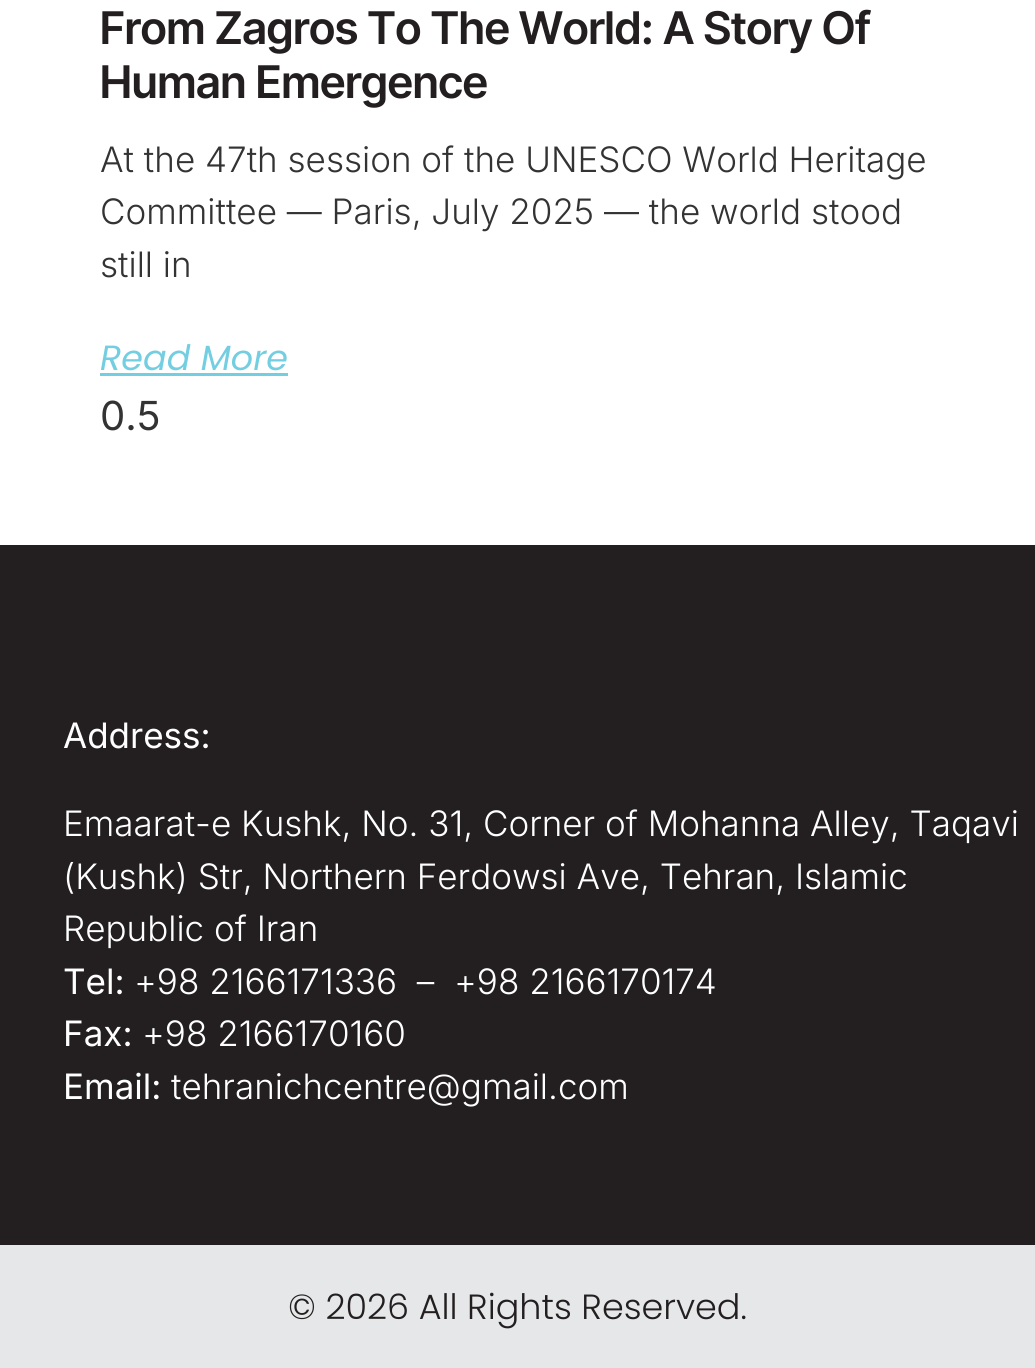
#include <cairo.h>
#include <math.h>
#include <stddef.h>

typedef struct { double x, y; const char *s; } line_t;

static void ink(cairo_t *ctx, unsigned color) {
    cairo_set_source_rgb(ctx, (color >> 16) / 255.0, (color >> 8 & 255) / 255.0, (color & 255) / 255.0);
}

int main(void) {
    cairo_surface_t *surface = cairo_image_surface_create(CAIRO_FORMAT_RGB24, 1035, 1368);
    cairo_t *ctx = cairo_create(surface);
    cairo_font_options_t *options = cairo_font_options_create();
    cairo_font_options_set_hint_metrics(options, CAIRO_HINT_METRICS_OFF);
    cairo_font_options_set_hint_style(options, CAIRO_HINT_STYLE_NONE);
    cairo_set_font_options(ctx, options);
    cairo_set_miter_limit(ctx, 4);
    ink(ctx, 0xE6E7E8);
    cairo_paint(ctx);
    ink(ctx, 0xFFFFFF);
    cairo_rectangle(ctx, 0, 0, 1035, 545);
    cairo_fill(ctx);
    cairo_select_font_face(ctx, "Inter Tight SemiBold", CAIRO_FONT_SLANT_NORMAL, CAIRO_FONT_WEIGHT_NORMAL);
    cairo_set_font_size(ctx, 45);
    ink(ctx, 0x231F20);
    cairo_move_to(ctx, 100, 44);
    cairo_show_text(ctx, "From Zagros To The World: A Story Of");
    cairo_move_to(ctx, 100, 98);
    cairo_show_text(ctx, "Human Emergence");
    cairo_select_font_face(ctx, "Inter Light", CAIRO_FONT_SLANT_NORMAL, CAIRO_FONT_WEIGHT_NORMAL);
    cairo_set_font_size(ctx, 35);
    ink(ctx, 0x333333);
    {
        static const line_t items[] = {
            {100, 172, "At the 47th session of the UNESCO World Heritage"},
            {100, 224, "Committee — Paris, July 2025 — the world stood"},
            {100, 277, "still in"},
        };
        for (size_t i = 0; i < sizeof items / sizeof *items; i++) {
            cairo_move_to(ctx, items[i].x, items[i].y);
            cairo_show_text(ctx, items[i].s);
        }
    }
    cairo_select_font_face(ctx, "Poppins", CAIRO_FONT_SLANT_ITALIC, CAIRO_FONT_WEIGHT_NORMAL);
    ink(ctx, 0x73CEE2);
    cairo_move_to(ctx, 100, 370);
    cairo_show_text(ctx, "Read More");
    cairo_rectangle(ctx, 100, 373, 188, 3);
    cairo_fill(ctx);
    cairo_select_font_face(ctx, "Inter", CAIRO_FONT_SLANT_NORMAL, CAIRO_FONT_WEIGHT_NORMAL);
    cairo_set_font_size(ctx, 40);
    ink(ctx, 0x333333);
    cairo_move_to(ctx, 100, 430);
    cairo_show_text(ctx, "0.5");
    ink(ctx, 0x231F20);
    cairo_rectangle(ctx, 0, 545, 1035, 700);
    cairo_fill(ctx);
    cairo_set_font_size(ctx, 35);
    ink(ctx, 0xFFFFFF);
    cairo_move_to(ctx, 63, 748);
    cairo_show_text(ctx, "Address:");
    cairo_select_font_face(ctx, "Inter Light", CAIRO_FONT_SLANT_NORMAL, CAIRO_FONT_WEIGHT_NORMAL);
    {
        static const line_t items[] = {
            {63, 836, "Emaarat-e Kushk, No. 31, Corner of Mohanna Alley, Taqavi"},
            {63, 889, "(Kushk) Str, Northern Ferdowsi Ave, Tehran, Islamic"},
            {63, 941, "Republic of Iran"},
        };
        for (size_t i = 0; i < sizeof items / sizeof *items; i++) {
            cairo_move_to(ctx, items[i].x, items[i].y);
            cairo_show_text(ctx, items[i].s);
        }
    }
    cairo_select_font_face(ctx, "Inter", CAIRO_FONT_SLANT_NORMAL, CAIRO_FONT_WEIGHT_NORMAL);
    cairo_move_to(ctx, 63, 994);
    cairo_show_text(ctx, "Tel:");
    cairo_select_font_face(ctx, "Inter Light", CAIRO_FONT_SLANT_NORMAL, CAIRO_FONT_WEIGHT_NORMAL);
    cairo_move_to(ctx, 134, 994);
    cairo_show_text(ctx, "+98 2166171336  –  +98 2166170174");
    cairo_select_font_face(ctx, "Inter", CAIRO_FONT_SLANT_NORMAL, CAIRO_FONT_WEIGHT_NORMAL);
    cairo_move_to(ctx, 63, 1046);
    cairo_show_text(ctx, "Fax:");
    cairo_select_font_face(ctx, "Inter Light", CAIRO_FONT_SLANT_NORMAL, CAIRO_FONT_WEIGHT_NORMAL);
    cairo_move_to(ctx, 142, 1046);
    cairo_show_text(ctx, "+98 2166170160");
    cairo_select_font_face(ctx, "Inter", CAIRO_FONT_SLANT_NORMAL, CAIRO_FONT_WEIGHT_NORMAL);
    cairo_move_to(ctx, 63, 1099);
    cairo_show_text(ctx, "Email:");
    cairo_select_font_face(ctx, "Inter Light", CAIRO_FONT_SLANT_NORMAL, CAIRO_FONT_WEIGHT_NORMAL);
    cairo_move_to(ctx, 171, 1099);
    cairo_show_text(ctx, "tehranichcentre@gmail.com");
    cairo_select_font_face(ctx, "Poppins Light", CAIRO_FONT_SLANT_NORMAL, CAIRO_FONT_WEIGHT_NORMAL);
    ink(ctx, 0x231F20);
    cairo_move_to(ctx, 288, 1319);
    cairo_show_text(ctx, "© 2026 All Rights Reserved.");
    cairo_surface_write_to_png(surface, "image.png");
    cairo_font_options_destroy(options);
    cairo_destroy(ctx);
    cairo_surface_destroy(surface);
    return 0;
}
